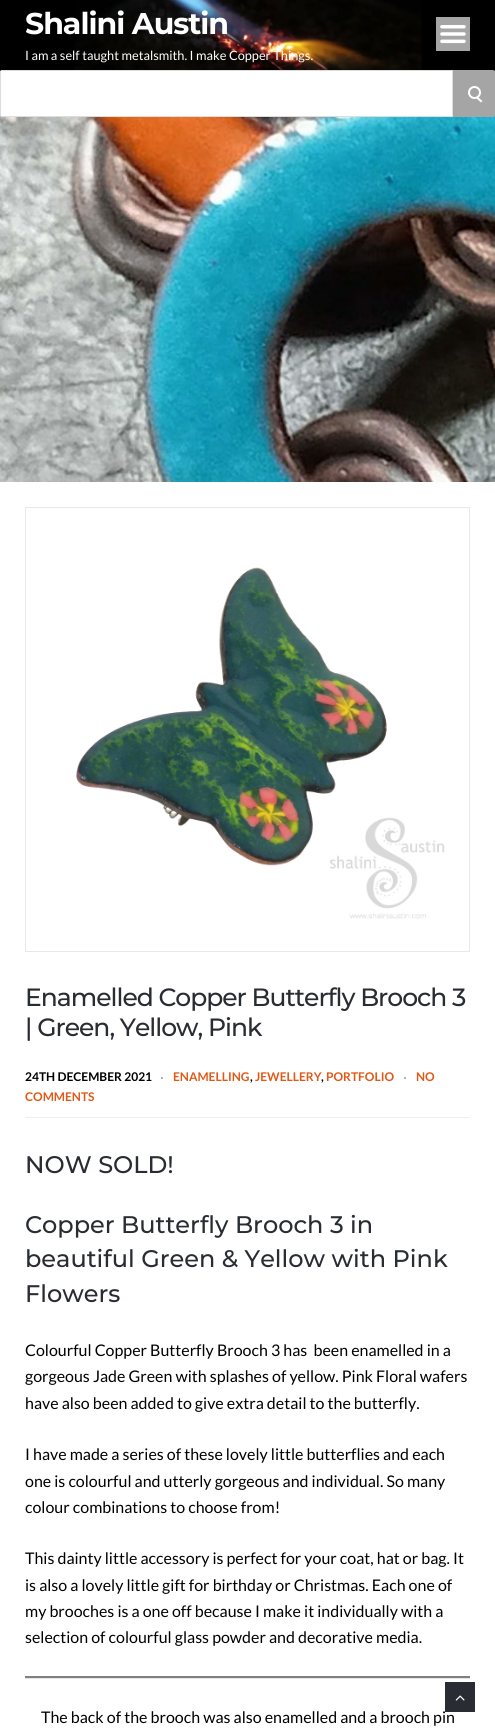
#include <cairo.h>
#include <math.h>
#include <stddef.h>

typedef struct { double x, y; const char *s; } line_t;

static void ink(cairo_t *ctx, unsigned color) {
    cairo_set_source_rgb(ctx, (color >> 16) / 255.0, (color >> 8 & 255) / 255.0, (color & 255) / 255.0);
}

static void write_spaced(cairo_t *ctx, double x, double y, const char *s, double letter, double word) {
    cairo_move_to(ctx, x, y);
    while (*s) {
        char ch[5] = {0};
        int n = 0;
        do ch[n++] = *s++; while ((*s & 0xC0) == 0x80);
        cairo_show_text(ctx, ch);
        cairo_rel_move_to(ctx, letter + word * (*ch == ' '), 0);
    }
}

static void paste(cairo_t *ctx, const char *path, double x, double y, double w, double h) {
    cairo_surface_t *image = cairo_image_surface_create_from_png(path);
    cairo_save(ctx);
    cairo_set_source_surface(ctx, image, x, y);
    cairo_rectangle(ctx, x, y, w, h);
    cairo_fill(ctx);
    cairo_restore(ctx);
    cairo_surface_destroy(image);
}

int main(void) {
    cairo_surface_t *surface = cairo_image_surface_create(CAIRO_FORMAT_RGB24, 495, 1732);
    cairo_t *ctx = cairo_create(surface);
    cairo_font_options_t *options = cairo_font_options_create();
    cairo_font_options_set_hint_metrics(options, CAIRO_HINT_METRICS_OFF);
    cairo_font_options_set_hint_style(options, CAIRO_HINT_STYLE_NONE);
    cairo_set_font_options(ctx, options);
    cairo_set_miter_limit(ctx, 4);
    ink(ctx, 0xFFFFFF);
    cairo_paint(ctx);
    ink(ctx, 0x000000);
    cairo_rectangle(ctx, 0, 0, 495, 71);
    cairo_fill(ctx);
    paste(ctx, "media/1.png", 74, 0, 348, 70);
    cairo_select_font_face(ctx, "Montserrat", CAIRO_FONT_SLANT_NORMAL, CAIRO_FONT_WEIGHT_BOLD);
    cairo_set_font_size(ctx, 30);
    ink(ctx, 0xFFFFFF);
    write_spaced(ctx, 25, 34, "Shalini Austin", -1, 0);
    cairo_select_font_face(ctx, "Lato", CAIRO_FONT_SLANT_NORMAL, CAIRO_FONT_WEIGHT_NORMAL);
    cairo_set_font_size(ctx, 12.8);
    cairo_move_to(ctx, 25, 60);
    cairo_show_text(ctx, "I am a self taught metalsmith. I make Copper Things.");
    cairo_rectangle(ctx, 440, 25, 26, 19);
    cairo_fill(ctx);
    paste(ctx, "media/2.png", 436, 17, 34, 34);
    paste(ctx, "media/3.png", 0, 115, 495, 367);
    cairo_new_path(ctx);
    cairo_move_to(ctx, 2, 70.5);
    cairo_line_to(ctx, 452.5, 70.5);
    cairo_line_to(ctx, 452.5, 116.5);
    cairo_line_to(ctx, 2, 116.5);
    cairo_curve_to(ctx, 1, 116.5, 0.5, 116, 0.5, 115);
    cairo_line_to(ctx, 0.5, 72);
    cairo_curve_to(ctx, 0.5, 71, 1, 70.5, 2, 70.5);
    cairo_close_path(ctx);
    cairo_fill_preserve(ctx);
    ink(ctx, 0xDDDDDD);
    cairo_set_line_width(ctx, 1);
    cairo_stroke(ctx);
    ink(ctx, 0xA5A5A5);
    cairo_new_path(ctx);
    cairo_move_to(ctx, 453, 70);
    cairo_line_to(ctx, 493, 70);
    cairo_curve_to(ctx, 494, 70, 495, 71, 495, 72);
    cairo_line_to(ctx, 495, 115);
    cairo_curve_to(ctx, 495, 116, 494, 117, 493, 117);
    cairo_line_to(ctx, 453, 117);
    cairo_close_path(ctx);
    cairo_fill(ctx);
    cairo_arc(ctx, 474.5, 92.5, 5.5, 0, 2 * M_PI);
    ink(ctx, 0xFFFFFF);
    cairo_set_line_width(ctx, 2);
    cairo_stroke(ctx);
    cairo_new_path(ctx);
    cairo_move_to(ctx, 476.5, 98.5);
    cairo_line_to(ctx, 478, 97);
    cairo_line_to(ctx, 482.5, 101);
    cairo_line_to(ctx, 481, 102.5);
    cairo_close_path(ctx);
    cairo_fill(ctx);
    cairo_rectangle(ctx, 25.5, 507.5, 444, 444);
    ink(ctx, 0xE8E8E8);
    cairo_set_line_width(ctx, 1);
    cairo_stroke(ctx);
    paste(ctx, "media/4.png", 76, 567, 369, 352);
    cairo_select_font_face(ctx, "Montserrat Medium", CAIRO_FONT_SLANT_NORMAL, CAIRO_FONT_WEIGHT_NORMAL);
    cairo_set_font_size(ctx, 25);
    ink(ctx, 0x292C33);
    write_spaced(ctx, 25, 1006, "Enamelled Copper Butterfly Brooch 3", -1, 0);
    write_spaced(ctx, 25, 1036, "| Green, Yellow, Pink", -1, 0);
    ink(ctx, 0xEEEEEE);
    cairo_rectangle(ctx, 25, 1117, 445, 1);
    cairo_fill(ctx);
    cairo_select_font_face(ctx, "Lato", CAIRO_FONT_SLANT_NORMAL, CAIRO_FONT_WEIGHT_BOLD);
    cairo_set_font_size(ctx, 12);
    ink(ctx, 0x000000);
    cairo_move_to(ctx, 25, 1081);
    cairo_show_text(ctx, "24TH DECEMBER 2021");
    ink(ctx, 0xAEB6B9);
    cairo_rectangle(ctx, 404, 1077, 2, 2);
    cairo_fill(ctx);
    ink(ctx, 0xE05916);
    cairo_move_to(ctx, 416, 1081);
    cairo_show_text(ctx, "NO");
    cairo_move_to(ctx, 25, 1101);
    cairo_show_text(ctx, "COMMENTS");
    ink(ctx, 0xAEB6B9);
    cairo_rectangle(ctx, 161, 1077, 2, 2);
    cairo_fill(ctx);
    ink(ctx, 0xE05916);
    {
        static const line_t items[] = {
            {173, 1081, "ENAMELLING"},
            {255, 1081, "JEWELLERY"},
            {326, 1081, "PORTFOLIO"},
        };
        for (size_t i = 0; i < sizeof items / sizeof *items; i++) {
            cairo_move_to(ctx, items[i].x, items[i].y);
            cairo_show_text(ctx, items[i].s);
        }
    }
    ink(ctx, 0x000000);
    cairo_move_to(ctx, 250, 1081);
    cairo_show_text(ctx, ",");
    cairo_move_to(ctx, 321, 1081);
    cairo_show_text(ctx, ",");
    cairo_select_font_face(ctx, "Montserrat Medium", CAIRO_FONT_SLANT_NORMAL, CAIRO_FONT_WEIGHT_NORMAL);
    cairo_set_font_size(ctx, 24);
    ink(ctx, 0x292C33);
    {
        static const line_t items[] = {
            {25, 1173, "NOW SOLD!"},
            {25, 1233, "Copper Butterfly Brooch 3 in"},
            {25, 1267, "beautiful Green & Yellow with Pink"},
            {25, 1302, "Flowers"},
        };
        for (size_t i = 0; i < sizeof items / sizeof *items; i++) {
            cairo_move_to(ctx, items[i].x, items[i].y);
            cairo_show_text(ctx, items[i].s);
        }
    }
    cairo_select_font_face(ctx, "Lato", CAIRO_FONT_SLANT_NORMAL, CAIRO_FONT_WEIGHT_NORMAL);
    cairo_set_font_size(ctx, 16);
    ink(ctx, 0x000000);
    {
        static const line_t items[] = {
            {25, 1356, "Colourful Copper Butterfly Brooch 3 has  been enamelled in a"},
            {25, 1382, "gorgeous Jade Green with splashes of yellow. Pink Floral wafers"},
            {25, 1409, "have also been added to give extra detail to the butterfly."},
            {25, 1460, "I have made a series of these lovely little butterflies and each"},
            {25, 1487, "one is colourful and utterly gorgeous and individual. So many"},
            {25, 1513, "colour combinations to choose from!"},
            {25, 1564, "This dainty little accessory is perfect for your coat, hat or bag. It"},
            {25, 1591, "is also a lovely little gift for birthday or Christmas. Each one of"},
            {25, 1617, "my brooches is a one off because I make it individually with a"},
            {25, 1643, "selection of colourful glass powder and decorative media."},
        };
        for (size_t i = 0; i < sizeof items / sizeof *items; i++) {
            cairo_move_to(ctx, items[i].x, items[i].y);
            cairo_show_text(ctx, items[i].s);
        }
    }
    ink(ctx, 0xE5E5E5);
    cairo_rectangle(ctx, 25, 1678, 445, 1);
    cairo_fill(ctx);
    ink(ctx, 0x808080);
    cairo_rectangle(ctx, 25, 1676, 445, 2);
    cairo_fill(ctx);
    ink(ctx, 0x000000);
    cairo_move_to(ctx, 41, 1723);
    cairo_show_text(ctx, "The back of the brooch was also enamelled and a brooch pin");
    ink(ctx, 0x292C33);
    cairo_rectangle(ctx, 445, 1682, 30, 30);
    cairo_fill(ctx);
    paste(ctx, "media/5.png", 455, 1695, 10, 6);
    cairo_surface_write_to_png(surface, "image.png");
    cairo_font_options_destroy(options);
    cairo_destroy(ctx);
    cairo_surface_destroy(surface);
    return 0;
}
